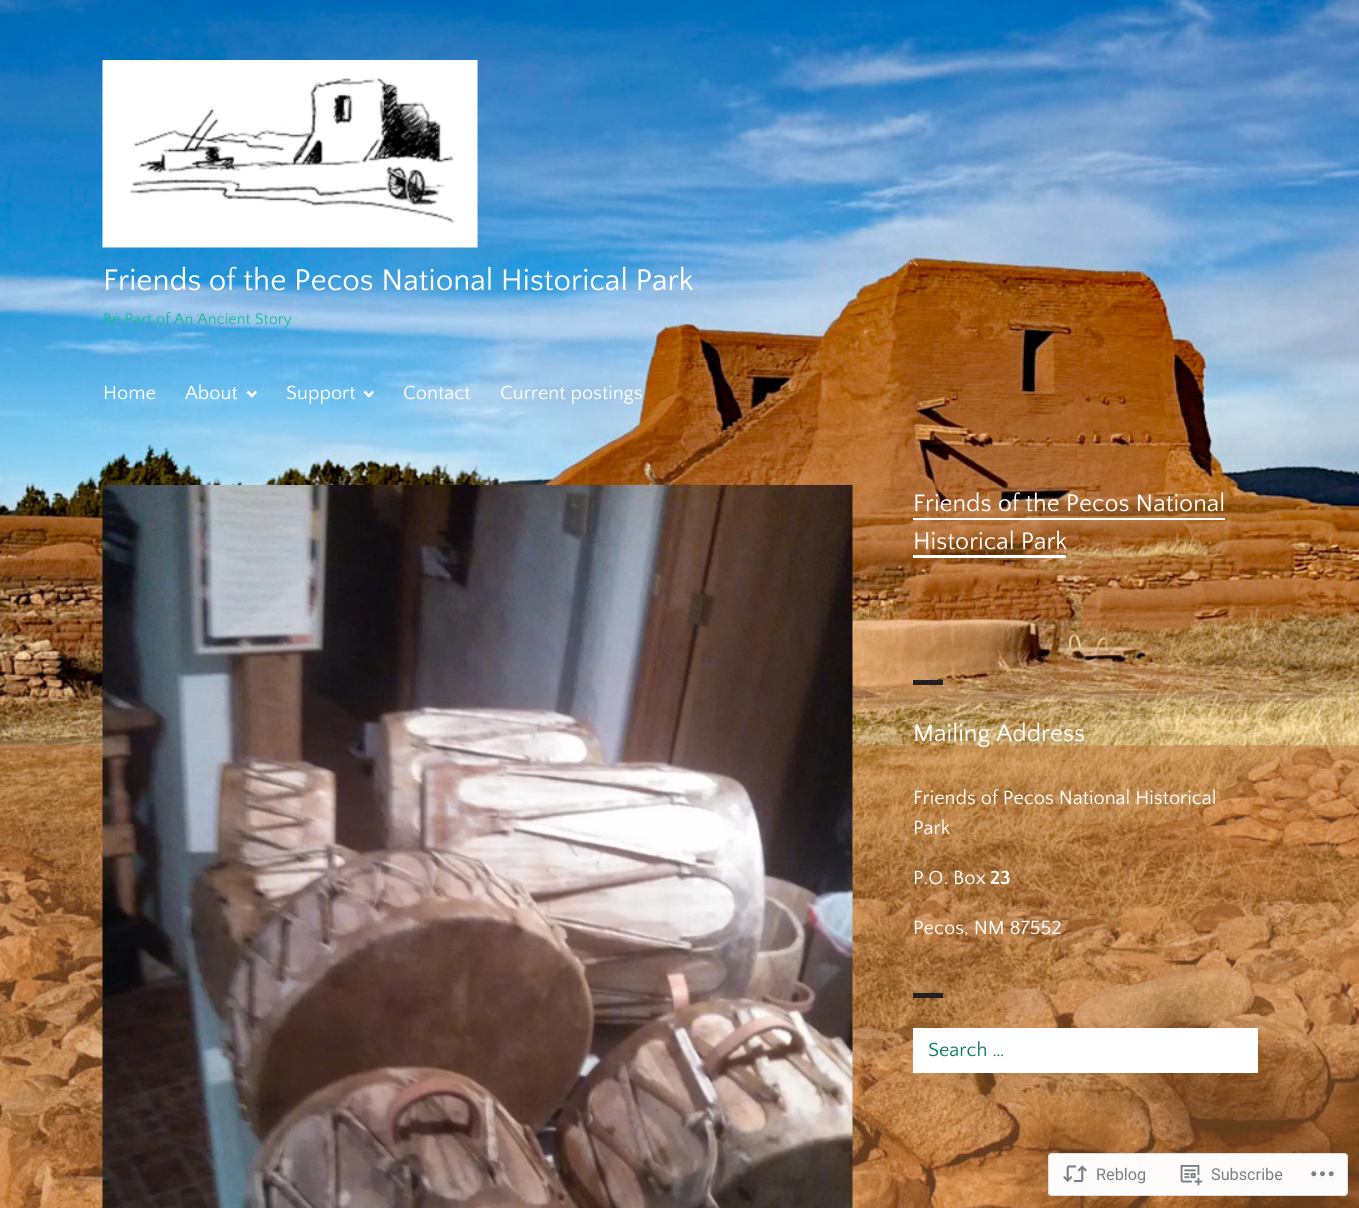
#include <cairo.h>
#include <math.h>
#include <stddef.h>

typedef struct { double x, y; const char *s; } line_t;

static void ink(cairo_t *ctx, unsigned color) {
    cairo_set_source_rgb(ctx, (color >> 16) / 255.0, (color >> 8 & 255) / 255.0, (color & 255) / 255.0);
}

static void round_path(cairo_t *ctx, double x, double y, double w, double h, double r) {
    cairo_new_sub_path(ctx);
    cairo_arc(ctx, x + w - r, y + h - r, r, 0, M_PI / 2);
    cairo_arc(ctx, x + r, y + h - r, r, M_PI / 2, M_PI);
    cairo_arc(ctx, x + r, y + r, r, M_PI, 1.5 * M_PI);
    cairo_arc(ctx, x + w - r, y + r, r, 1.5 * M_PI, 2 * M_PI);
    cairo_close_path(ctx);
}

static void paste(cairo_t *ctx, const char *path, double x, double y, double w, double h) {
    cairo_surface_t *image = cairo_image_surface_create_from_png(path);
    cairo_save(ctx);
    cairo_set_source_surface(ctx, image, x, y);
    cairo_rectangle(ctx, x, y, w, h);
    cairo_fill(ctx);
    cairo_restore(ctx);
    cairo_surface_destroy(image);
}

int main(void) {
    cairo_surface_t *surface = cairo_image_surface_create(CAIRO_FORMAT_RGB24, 1359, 1208);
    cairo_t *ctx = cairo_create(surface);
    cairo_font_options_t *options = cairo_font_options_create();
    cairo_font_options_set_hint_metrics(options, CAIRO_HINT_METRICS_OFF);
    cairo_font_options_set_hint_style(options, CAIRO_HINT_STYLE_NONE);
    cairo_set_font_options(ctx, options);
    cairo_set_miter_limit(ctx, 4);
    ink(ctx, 0xFFFFFF);
    cairo_paint(ctx);
    paste(ctx, "media/1.png", 0, 0, 1359, 1208);
    paste(ctx, "media/2.png", 102, 60, 376, 188);
    cairo_select_font_face(ctx, "Quattrocento Sans", CAIRO_FONT_SLANT_NORMAL, CAIRO_FONT_WEIGHT_NORMAL);
    cairo_set_font_size(ctx, 31.25);
    ink(ctx, 0xFFFFFF);
    cairo_move_to(ctx, 103, 290);
    cairo_show_text(ctx, "Friends of the Pecos National Historical Park");
    cairo_set_font_size(ctx, 16.25);
    ink(ctx, 0x1ABC9C);
    cairo_move_to(ctx, 103, 324);
    cairo_show_text(ctx, "Be Part of An Ancient Story");
    cairo_set_font_size(ctx, 20);
    ink(ctx, 0xFFFFFF);
    cairo_move_to(ctx, 103, 399);
    cairo_show_text(ctx, "Home");
    cairo_move_to(ctx, 185, 399);
    cairo_show_text(ctx, "About");
    cairo_new_path(ctx);
    cairo_move_to(ctx, 257, 392.5);
    cairo_line_to(ctx, 252, 397.5);
    cairo_line_to(ctx, 250, 396);
    cairo_line_to(ctx, 255.5, 390.5);
    cairo_close_path(ctx);
    cairo_fill(ctx);
    cairo_new_path(ctx);
    cairo_move_to(ctx, 253.5, 396);
    cairo_line_to(ctx, 252, 397.5);
    cairo_line_to(ctx, 246.5, 392.5);
    cairo_line_to(ctx, 248.5, 390.5);
    cairo_close_path(ctx);
    cairo_fill(ctx);
    cairo_move_to(ctx, 286, 399);
    cairo_show_text(ctx, "Support");
    cairo_new_path(ctx);
    cairo_move_to(ctx, 374, 392.5);
    cairo_line_to(ctx, 369, 397.5);
    cairo_line_to(ctx, 367, 396);
    cairo_line_to(ctx, 372.5, 390.5);
    cairo_close_path(ctx);
    cairo_fill(ctx);
    cairo_new_path(ctx);
    cairo_move_to(ctx, 370.5, 396);
    cairo_line_to(ctx, 369, 397.5);
    cairo_line_to(ctx, 363.5, 392.5);
    cairo_line_to(ctx, 365.5, 390.5);
    cairo_close_path(ctx);
    cairo_fill(ctx);
    cairo_move_to(ctx, 403, 399);
    cairo_show_text(ctx, "Contact");
    cairo_move_to(ctx, 500, 399);
    cairo_show_text(ctx, "Current postings");
    paste(ctx, "media/3.png", 102, 485, 751, 723);
    cairo_set_font_size(ctx, 25);
    cairo_move_to(ctx, 913, 511);
    cairo_show_text(ctx, "Friends of the Pecos National");
    cairo_rectangle(ctx, 913, 518, 312, 2);
    cairo_fill(ctx);
    cairo_move_to(ctx, 913, 549);
    cairo_show_text(ctx, "Historical Park");
    cairo_rectangle(ctx, 913, 555, 153, 3);
    cairo_fill(ctx);
    ink(ctx, 0x202020);
    cairo_rectangle(ctx, 913, 680, 30, 5);
    cairo_fill(ctx);
    ink(ctx, 0xFFFFFF);
    cairo_move_to(ctx, 913, 741);
    cairo_show_text(ctx, "Mailing Address");
    cairo_set_font_size(ctx, 20);
    {
        static const line_t items[] = {
            {913, 804, "Friends of Pecos National Historical"},
            {913, 834, "Park"},
            {913, 884, "P.O. Box"},
        };
        for (size_t i = 0; i < sizeof items / sizeof *items; i++) {
            cairo_move_to(ctx, items[i].x, items[i].y);
            cairo_show_text(ctx, items[i].s);
        }
    }
    cairo_select_font_face(ctx, "Quattrocento Sans", CAIRO_FONT_SLANT_NORMAL, CAIRO_FONT_WEIGHT_BOLD);
    cairo_move_to(ctx, 990, 884);
    cairo_show_text(ctx, "23");
    cairo_select_font_face(ctx, "Quattrocento Sans", CAIRO_FONT_SLANT_NORMAL, CAIRO_FONT_WEIGHT_NORMAL);
    cairo_move_to(ctx, 913, 934);
    cairo_show_text(ctx, "Pecos, NM 87552");
    ink(ctx, 0x202020);
    cairo_rectangle(ctx, 913, 993, 30, 5);
    cairo_fill(ctx);
    ink(ctx, 0xFFFFFF);
    cairo_rectangle(ctx, 913, 1028, 345, 45);
    cairo_fill(ctx);
    ink(ctx, 0x0B7D67);
    cairo_move_to(ctx, 928, 1056);
    cairo_show_text(ctx, "Search …");
    cairo_set_source_rgba(ctx, 1, 1, 1, 0.98);
    round_path(ctx, 1048, 1153, 300, 43, 4);
    cairo_fill(ctx);
    round_path(ctx, 1048.5, 1153.5, 299, 42, 3.5);
    cairo_set_source_rgba(ctx, 0.863, 0.863, 0.871, 0.98);
    cairo_set_line_width(ctx, 1);
    cairo_stroke(ctx);
    paste(ctx, "media/4.png", 1063, 1165, 24, 18);
    cairo_select_font_face(ctx, "Roboto", CAIRO_FONT_SLANT_NORMAL, CAIRO_FONT_WEIGHT_NORMAL);
    cairo_set_font_size(ctx, 16.25);
    ink(ctx, 0x7B7F84);
    cairo_move_to(ctx, 1096, 1180);
    cairo_show_text(ctx, "Reblog");
    paste(ctx, "media/5.png", 1180, 1165, 23, 21);
    cairo_move_to(ctx, 1211, 1180);
    cairo_show_text(ctx, "Subscribe");
    paste(ctx, "media/6.png", 1311, 1171, 23, 6);
    cairo_surface_write_to_png(surface, "image.png");
    cairo_font_options_destroy(options);
    cairo_destroy(ctx);
    cairo_surface_destroy(surface);
    return 0;
}
